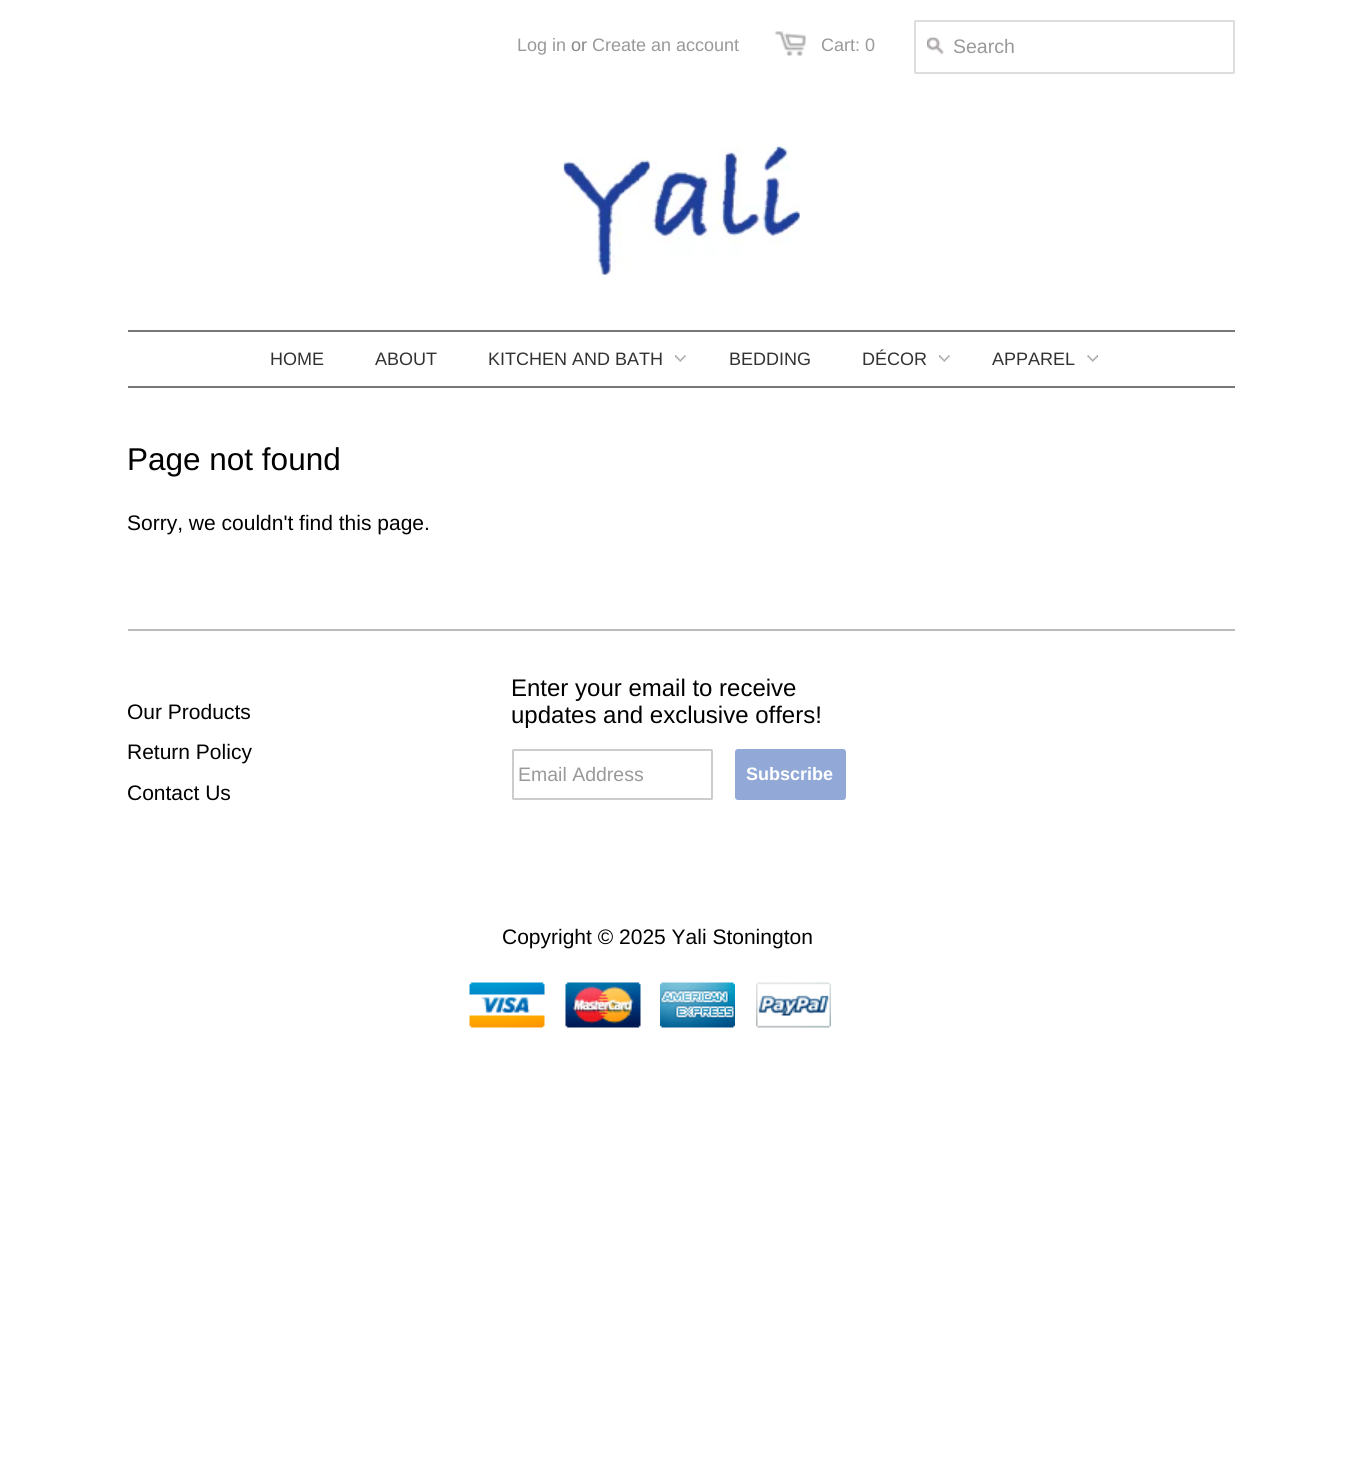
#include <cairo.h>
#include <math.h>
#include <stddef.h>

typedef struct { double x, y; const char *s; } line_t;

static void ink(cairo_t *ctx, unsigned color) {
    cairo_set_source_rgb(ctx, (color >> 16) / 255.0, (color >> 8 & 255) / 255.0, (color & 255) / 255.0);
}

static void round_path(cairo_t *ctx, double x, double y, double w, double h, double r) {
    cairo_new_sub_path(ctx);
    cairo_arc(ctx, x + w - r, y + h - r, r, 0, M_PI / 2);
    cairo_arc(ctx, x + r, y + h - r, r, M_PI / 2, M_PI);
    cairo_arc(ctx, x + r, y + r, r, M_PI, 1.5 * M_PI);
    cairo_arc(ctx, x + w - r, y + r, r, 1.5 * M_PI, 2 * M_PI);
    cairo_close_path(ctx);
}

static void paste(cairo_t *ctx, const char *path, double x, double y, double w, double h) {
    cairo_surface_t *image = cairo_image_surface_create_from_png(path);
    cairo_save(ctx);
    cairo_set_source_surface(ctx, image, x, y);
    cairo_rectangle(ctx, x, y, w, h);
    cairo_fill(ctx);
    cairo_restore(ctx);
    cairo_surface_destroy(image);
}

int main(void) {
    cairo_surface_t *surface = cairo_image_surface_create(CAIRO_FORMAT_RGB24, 1360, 1471);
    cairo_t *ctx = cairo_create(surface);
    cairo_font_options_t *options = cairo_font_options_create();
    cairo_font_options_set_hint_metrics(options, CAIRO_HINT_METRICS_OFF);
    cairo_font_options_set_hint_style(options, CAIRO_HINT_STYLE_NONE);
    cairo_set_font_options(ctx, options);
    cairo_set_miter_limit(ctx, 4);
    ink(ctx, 0xFFFFFF);
    cairo_paint(ctx);
    cairo_select_font_face(ctx, "Liberation Sans", CAIRO_FONT_SLANT_NORMAL, CAIRO_FONT_WEIGHT_NORMAL);
    cairo_set_font_size(ctx, 18);
    ink(ctx, 0x999999);
    cairo_move_to(ctx, 517, 51);
    cairo_show_text(ctx, "Log in");
    ink(ctx, 0x888888);
    cairo_move_to(ctx, 571, 51);
    cairo_show_text(ctx, "or");
    ink(ctx, 0x999999);
    cairo_move_to(ctx, 592, 51);
    cairo_show_text(ctx, "Create an account");
    paste(ctx, "media/1.png", 775, 31, 31, 25);
    cairo_move_to(ctx, 821, 51);
    cairo_show_text(ctx, "Cart: 0");
    round_path(ctx, 915, 21, 319, 52, 0.5);
    ink(ctx, 0xDDDDDD);
    cairo_stroke(ctx);
    paste(ctx, "media/2.png", 927, 37, 17, 17);
    cairo_set_font_size(ctx, 19.5);
    ink(ctx, 0x999999);
    cairo_move_to(ctx, 953, 53);
    cairo_show_text(ctx, "Search");
    paste(ctx, "media/3.png", 561, 145, 240, 134);
    ink(ctx, 0x777777);
    cairo_rectangle(ctx, 128, 330, 1107, 2);
    cairo_fill(ctx);
    cairo_rectangle(ctx, 128, 386, 1107, 2);
    cairo_fill(ctx);
    cairo_set_font_size(ctx, 18);
    ink(ctx, 0x333232);
    cairo_move_to(ctx, 270, 365);
    cairo_show_text(ctx, "HOME");
    cairo_move_to(ctx, 375, 365);
    cairo_show_text(ctx, "ABOUT");
    paste(ctx, "media/4.png", 675, 355, 11, 7);
    cairo_move_to(ctx, 488, 365);
    cairo_show_text(ctx, "KITCHEN AND BATH");
    cairo_move_to(ctx, 729, 365);
    cairo_show_text(ctx, "BEDDING");
    paste(ctx, "media/4.png", 939, 355, 11, 7);
    cairo_move_to(ctx, 862, 365);
    cairo_show_text(ctx, "DÉCOR");
    paste(ctx, "media/5.png", 1087, 355, 11, 7);
    cairo_move_to(ctx, 992, 365);
    cairo_show_text(ctx, "APPAREL");
    cairo_set_font_size(ctx, 31.5);
    ink(ctx, 0x000000);
    cairo_move_to(ctx, 127, 470);
    cairo_show_text(ctx, "Page not found");
    cairo_set_font_size(ctx, 21);
    cairo_move_to(ctx, 127, 530);
    cairo_show_text(ctx, "Sorry, we couldn't find this page.");
    ink(ctx, 0xBABABA);
    cairo_rectangle(ctx, 128, 629, 1107, 2);
    cairo_fill(ctx);
    ink(ctx, 0x000000);
    {
        static const line_t items[] = {
            {127, 719, "Our Products"},
            {127, 759, "Return Policy"},
            {127, 800, "Contact Us"},
        };
        for (size_t i = 0; i < sizeof items / sizeof *items; i++) {
            cairo_move_to(ctx, items[i].x, items[i].y);
            cairo_show_text(ctx, items[i].s);
        }
    }
    cairo_set_font_size(ctx, 24);
    cairo_move_to(ctx, 511, 696);
    cairo_show_text(ctx, "Enter your email to receive");
    cairo_move_to(ctx, 511, 723);
    cairo_show_text(ctx, "updates and exclusive offers!");
    round_path(ctx, 513, 750, 199, 49, 0.5);
    ink(ctx, 0xCCCCCC);
    cairo_stroke(ctx);
    cairo_set_font_size(ctx, 19.5);
    ink(ctx, 0x999999);
    cairo_move_to(ctx, 518, 781);
    cairo_show_text(ctx, "Email Address");
    ink(ctx, 0x92A9D7);
    round_path(ctx, 735, 749, 111, 51, 3);
    cairo_fill(ctx);
    cairo_select_font_face(ctx, "Liberation Sans", CAIRO_FONT_SLANT_NORMAL, CAIRO_FONT_WEIGHT_BOLD);
    cairo_set_font_size(ctx, 18);
    ink(ctx, 0xFFFFFF);
    cairo_move_to(ctx, 746, 780);
    cairo_show_text(ctx, "Subscribe");
    cairo_select_font_face(ctx, "Liberation Sans", CAIRO_FONT_SLANT_NORMAL, CAIRO_FONT_WEIGHT_NORMAL);
    cairo_set_font_size(ctx, 21);
    ink(ctx, 0x000000);
    cairo_move_to(ctx, 502, 944);
    cairo_show_text(ctx, "Copyright © 2025 Yali Stonington");
    paste(ctx, "media/6.png", 469, 982, 76, 46);
    paste(ctx, "media/7.png", 565, 982, 76, 46);
    paste(ctx, "media/8.png", 660, 982, 75, 46);
    paste(ctx, "media/9.png", 756, 982, 75, 46);
    cairo_surface_write_to_png(surface, "image.png");
    cairo_font_options_destroy(options);
    cairo_destroy(ctx);
    cairo_surface_destroy(surface);
    return 0;
}
